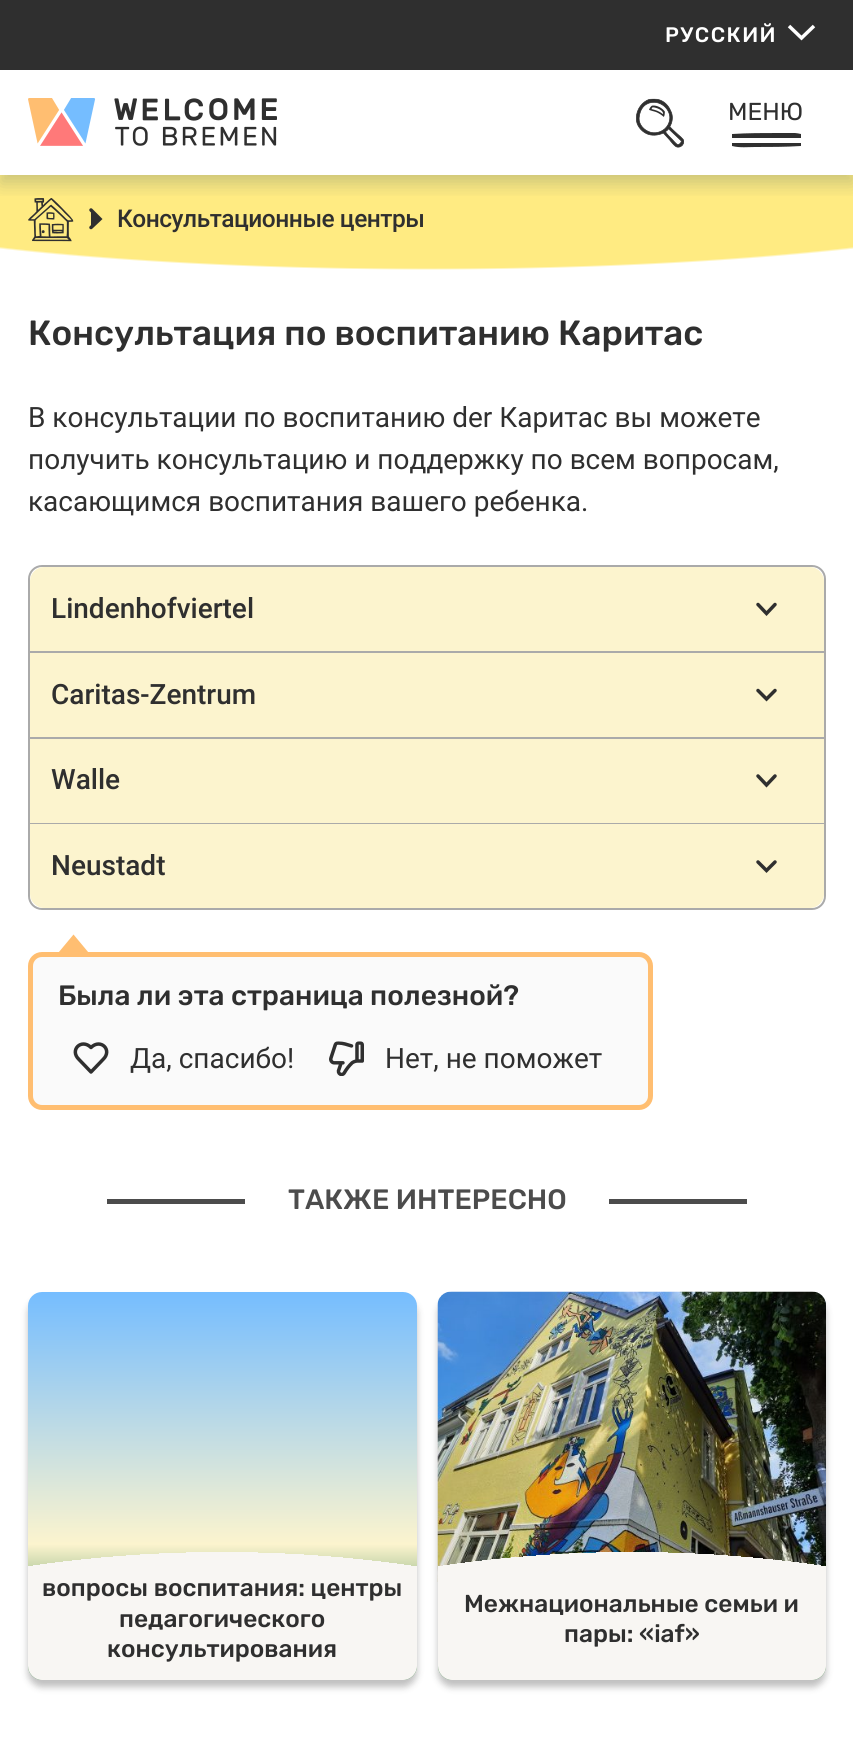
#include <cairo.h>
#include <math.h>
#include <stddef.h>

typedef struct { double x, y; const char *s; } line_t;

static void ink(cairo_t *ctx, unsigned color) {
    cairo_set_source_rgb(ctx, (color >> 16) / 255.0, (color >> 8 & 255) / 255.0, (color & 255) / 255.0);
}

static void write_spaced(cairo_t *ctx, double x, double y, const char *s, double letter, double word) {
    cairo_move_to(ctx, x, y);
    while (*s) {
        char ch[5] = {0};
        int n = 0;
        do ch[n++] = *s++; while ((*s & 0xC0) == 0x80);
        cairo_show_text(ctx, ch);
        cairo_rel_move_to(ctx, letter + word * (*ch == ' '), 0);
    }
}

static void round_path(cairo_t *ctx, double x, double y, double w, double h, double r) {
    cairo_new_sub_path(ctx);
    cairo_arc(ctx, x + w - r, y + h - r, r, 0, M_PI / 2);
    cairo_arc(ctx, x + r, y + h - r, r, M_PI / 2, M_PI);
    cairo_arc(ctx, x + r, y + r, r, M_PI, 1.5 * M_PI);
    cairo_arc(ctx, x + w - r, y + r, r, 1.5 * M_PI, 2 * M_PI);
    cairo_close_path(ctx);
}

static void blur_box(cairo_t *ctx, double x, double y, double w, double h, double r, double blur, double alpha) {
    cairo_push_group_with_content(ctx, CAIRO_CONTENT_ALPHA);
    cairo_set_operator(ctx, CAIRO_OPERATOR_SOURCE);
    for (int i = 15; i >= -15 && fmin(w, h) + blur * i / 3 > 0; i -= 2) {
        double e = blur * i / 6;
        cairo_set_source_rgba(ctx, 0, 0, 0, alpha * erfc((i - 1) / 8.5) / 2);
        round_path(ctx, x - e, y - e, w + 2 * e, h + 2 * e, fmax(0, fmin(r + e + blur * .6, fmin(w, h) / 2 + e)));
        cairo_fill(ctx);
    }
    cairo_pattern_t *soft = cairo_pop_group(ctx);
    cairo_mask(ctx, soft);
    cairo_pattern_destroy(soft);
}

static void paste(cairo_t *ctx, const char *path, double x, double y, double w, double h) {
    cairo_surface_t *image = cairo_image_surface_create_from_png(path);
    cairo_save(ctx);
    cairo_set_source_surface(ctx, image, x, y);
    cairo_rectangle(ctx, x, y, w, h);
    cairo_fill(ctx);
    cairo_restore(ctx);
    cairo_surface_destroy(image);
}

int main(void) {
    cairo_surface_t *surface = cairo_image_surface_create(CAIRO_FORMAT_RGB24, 853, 1749);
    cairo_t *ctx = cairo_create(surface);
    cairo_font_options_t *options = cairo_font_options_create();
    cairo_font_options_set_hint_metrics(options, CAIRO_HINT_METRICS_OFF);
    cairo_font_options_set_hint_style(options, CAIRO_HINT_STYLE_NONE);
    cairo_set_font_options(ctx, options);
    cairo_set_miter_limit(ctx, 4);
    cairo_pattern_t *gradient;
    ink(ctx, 0xFFFFFF);
    cairo_paint(ctx);
    gradient = cairo_pattern_create_radial(0, 0, 0, 0, 0, 1);
    cairo_pattern_set_matrix(gradient, &(cairo_matrix_t){1.0 / 683, 0, 0, 1.0 / 95, -1.0 * 427 / 683, -1.0 * 175 / 95});
    cairo_pattern_add_color_stop_rgba(gradient, 0.98, 1, 0.922, 0.51, 1);
    cairo_pattern_add_color_stop_rgba(gradient, 1, 1, 1, 1, 1);
    cairo_set_source(ctx, gradient);
    cairo_pattern_destroy(gradient);
    cairo_rectangle(ctx, 0, 175, 853, 95);
    cairo_fill(ctx);
    paste(ctx, "media/3.png", 28, 198, 46, 44);
    ink(ctx, 0x2F2F2F);
    cairo_new_path(ctx);
    cairo_move_to(ctx, 91, 227.5);
    cairo_line_to(ctx, 100, 219);
    cairo_line_to(ctx, 91, 210);
    cairo_fill_preserve(ctx);
    cairo_set_line_width(ctx, 3.5);
    cairo_set_line_cap(ctx, CAIRO_LINE_CAP_ROUND);
    cairo_stroke(ctx);
    cairo_save(ctx);
    cairo_rectangle(ctx, 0, 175, 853, 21);
    cairo_clip(ctx);
    ink(ctx, 0x002E59);
    blur_box(ctx, 0, 79, 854, 105, 0, 9, 0.2);
    cairo_restore(ctx);
    cairo_rectangle(ctx, 0, 0, 853, 70);
    cairo_fill(ctx);
    cairo_select_font_face(ctx, "Rubik Medium", CAIRO_FONT_SLANT_NORMAL, CAIRO_FONT_WEIGHT_NORMAL);
    cairo_set_font_size(ctx, 21);
    ink(ctx, 0xFFFFFF);
    write_spaced(ctx, 665, 42, "РУССКИЙ", 1.5, 0);
    cairo_new_path(ctx);
    cairo_move_to(ctx, 789, 26);
    cairo_line_to(ctx, 801.5, 38);
    cairo_line_to(ctx, 814, 26);
    cairo_set_line_cap(ctx, CAIRO_LINE_CAP_BUTT);
    cairo_stroke(ctx);
    paste(ctx, "media/1.png", 28, 98, 249, 48);
    paste(ctx, "media/2.png", 636, 98, 48, 50);
    cairo_save(ctx);
    cairo_rectangle(ctx, 732, 133, 70, 16);
    cairo_clip(ctx);
    ink(ctx, 0x2F2F2F);
    cairo_new_path(ctx);
    cairo_move_to(ctx, 774, 138);
    cairo_line_to(ctx, 732, 138);
    cairo_line_to(ctx, 732, 134);
    cairo_curve_to(ctx, 748, 133, 763, 133, 778, 133);
    cairo_curve_to(ctx, 785, 133, 793, 132, 801, 134);
    cairo_line_to(ctx, 801, 138);
    cairo_close_path(ctx);
    cairo_fill(ctx);
    cairo_restore(ctx);
    ink(ctx, 0x2F2F2F);
    cairo_new_path(ctx);
    cairo_move_to(ctx, 759, 143);
    cairo_line_to(ctx, 801, 143);
    cairo_line_to(ctx, 801, 146);
    cairo_curve_to(ctx, 785, 147, 770, 147, 755, 147);
    cairo_curve_to(ctx, 748, 147, 740, 148, 732, 146);
    cairo_line_to(ctx, 732, 143);
    cairo_close_path(ctx);
    cairo_fill(ctx);
    cairo_select_font_face(ctx, "Rubik", CAIRO_FONT_SLANT_NORMAL, CAIRO_FONT_WEIGHT_NORMAL);
    cairo_set_font_size(ctx, 24.5);
    cairo_move_to(ctx, 728, 120);
    cairo_show_text(ctx, "МЕНЮ");
    cairo_select_font_face(ctx, "Roboto Medium", CAIRO_FONT_SLANT_NORMAL, CAIRO_FONT_WEIGHT_NORMAL);
    write_spaced(ctx, 117, 227, "Консультационные центры", -0.5, 0);
    cairo_select_font_face(ctx, "Rubik Medium", CAIRO_FONT_SLANT_NORMAL, CAIRO_FONT_WEIGHT_NORMAL);
    cairo_set_font_size(ctx, 35);
    cairo_move_to(ctx, 28, 345);
    cairo_show_text(ctx, "Консультация по воспитанию Каритас");
    cairo_select_font_face(ctx, "Roboto", CAIRO_FONT_SLANT_NORMAL, CAIRO_FONT_WEIGHT_NORMAL);
    cairo_set_font_size(ctx, 28);
    {
        static const line_t items[] = {
            {28, 427, "В консультации по воспитанию der Каритас вы можете"},
            {28, 469, "получить консультацию и поддержку по всем вопросам,"},
            {28, 511, "касающимся воспитания вашего ребенка."},
        };
        for (size_t i = 0; i < sizeof items / sizeof *items; i++) {
            cairo_move_to(ctx, items[i].x, items[i].y);
            cairo_show_text(ctx, items[i].s);
        }
    }
    round_path(ctx, 29, 566, 796, 343, 13);
    ink(ctx, 0xAAAAAA);
    cairo_set_line_width(ctx, 2);
    cairo_stroke(ctx);
    cairo_rectangle(ctx, 30, 651, 794, 2);
    cairo_fill(ctx);
    ink(ctx, 0xFCF4CE);
    cairo_new_path(ctx);
    cairo_move_to(ctx, 44, 567);
    cairo_line_to(ctx, 810, 567);
    cairo_curve_to(ctx, 817.5, 567, 824, 573.5, 824, 581);
    cairo_line_to(ctx, 824, 651);
    cairo_line_to(ctx, 30, 651);
    cairo_line_to(ctx, 30, 581);
    cairo_curve_to(ctx, 30, 573.5, 36.5, 567, 44, 567);
    cairo_close_path(ctx);
    cairo_fill(ctx);
    cairo_select_font_face(ctx, "Roboto Medium", CAIRO_FONT_SLANT_NORMAL, CAIRO_FONT_WEIGHT_NORMAL);
    ink(ctx, 0x2F2F2F);
    cairo_move_to(ctx, 51, 618);
    cairo_show_text(ctx, "Lindenhofviertel");
    cairo_new_path(ctx);
    cairo_move_to(ctx, 758, 604.5);
    cairo_line_to(ctx, 766.5, 613.5);
    cairo_line_to(ctx, 775, 604.5);
    cairo_set_line_width(ctx, 3.5);
    cairo_set_line_cap(ctx, CAIRO_LINE_CAP_ROUND);
    cairo_stroke(ctx);
    ink(ctx, 0xAAAAAA);
    cairo_rectangle(ctx, 30, 737, 794, 2);
    cairo_fill(ctx);
    ink(ctx, 0xFCF4CE);
    cairo_rectangle(ctx, 30, 653, 794, 84);
    cairo_fill(ctx);
    ink(ctx, 0x2F2F2F);
    cairo_move_to(ctx, 51, 704);
    cairo_show_text(ctx, "Caritas-Zentrum");
    cairo_new_path(ctx);
    cairo_move_to(ctx, 758, 690.5);
    cairo_line_to(ctx, 766.5, 699);
    cairo_line_to(ctx, 775, 690.5);
    cairo_stroke(ctx);
    ink(ctx, 0xAAAAAA);
    cairo_rectangle(ctx, 30, 823, 794, 1);
    cairo_fill(ctx);
    ink(ctx, 0xFCF4CE);
    cairo_rectangle(ctx, 30, 739, 794, 84);
    cairo_fill(ctx);
    ink(ctx, 0x2F2F2F);
    cairo_move_to(ctx, 51, 789);
    cairo_show_text(ctx, "Walle");
    cairo_new_path(ctx);
    cairo_move_to(ctx, 758, 776);
    cairo_line_to(ctx, 766.5, 785);
    cairo_line_to(ctx, 775, 776);
    cairo_stroke(ctx);
    ink(ctx, 0xFCF4CE);
    cairo_new_path(ctx);
    cairo_move_to(ctx, 30, 824);
    cairo_line_to(ctx, 824, 824);
    cairo_line_to(ctx, 824, 894);
    cairo_curve_to(ctx, 824, 901.5, 817.5, 908, 810, 908);
    cairo_line_to(ctx, 44, 908);
    cairo_curve_to(ctx, 36.5, 908, 30, 901.5, 30, 894);
    cairo_close_path(ctx);
    cairo_fill(ctx);
    ink(ctx, 0x2F2F2F);
    cairo_move_to(ctx, 51, 875);
    cairo_show_text(ctx, "Neustadt");
    cairo_new_path(ctx);
    cairo_move_to(ctx, 758, 862);
    cairo_line_to(ctx, 766.5, 870.5);
    cairo_line_to(ctx, 775, 862);
    cairo_stroke(ctx);
    ink(ctx, 0xFAFAFA);
    round_path(ctx, 30.5, 954.5, 620, 153, 11.5);
    cairo_fill_preserve(ctx);
    ink(ctx, 0xFFBE71);
    cairo_set_line_width(ctx, 5);
    cairo_set_line_cap(ctx, CAIRO_LINE_CAP_BUTT);
    cairo_stroke(ctx);
    cairo_new_path(ctx);
    cairo_move_to(ctx, 91, 955.5);
    cairo_line_to(ctx, 56, 955.5);
    cairo_line_to(ctx, 73.5, 934.5);
    cairo_close_path(ctx);
    cairo_fill(ctx);
    cairo_select_font_face(ctx, "Rubik Medium", CAIRO_FONT_SLANT_NORMAL, CAIRO_FONT_WEIGHT_NORMAL);
    ink(ctx, 0x2F2F2F);
    cairo_move_to(ctx, 58, 1005);
    cairo_show_text(ctx, "Была ли эта страница полезной?");
    cairo_new_path(ctx);
    cairo_move_to(ctx, 91, 1047.5);
    cairo_curve_to(ctx, 81.5, 1038, 69, 1050, 79, 1059.5);
    cairo_line_to(ctx, 91, 1072);
    cairo_line_to(ctx, 103, 1059.5);
    cairo_curve_to(ctx, 113, 1050, 100.5, 1038, 91, 1047.5);
    cairo_close_path(ctx);
    cairo_set_line_width(ctx, 3.5);
    cairo_set_line_cap(ctx, CAIRO_LINE_CAP_ROUND);
    cairo_set_line_join(ctx, CAIRO_LINE_JOIN_ROUND);
    cairo_stroke(ctx);
    cairo_select_font_face(ctx, "Roboto", CAIRO_FONT_SLANT_NORMAL, CAIRO_FONT_WEIGHT_NORMAL);
    cairo_move_to(ctx, 130, 1068);
    cairo_show_text(ctx, "Да, спасибо!");
    paste(ctx, "media/4.png", 329, 1041, 35, 35);
    cairo_move_to(ctx, 385, 1068);
    cairo_show_text(ctx, "Нет, не поможет");
    ink(ctx, 0x4C4C4C);
    cairo_rectangle(ctx, 107, 1199, 138, 5);
    cairo_fill(ctx);
    cairo_select_font_face(ctx, "Rubik Medium", CAIRO_FONT_SLANT_NORMAL, CAIRO_FONT_WEIGHT_NORMAL);
    cairo_move_to(ctx, 288, 1209);
    cairo_show_text(ctx, "ТАКЖЕ ИНТЕРЕСНО");
    cairo_rectangle(ctx, 609, 1199, 138, 5);
    cairo_fill(ctx);
    ink(ctx, 0x000000);
    blur_box(ctx, 28, 1299, 389, 388, 14, 3.5, 0.25);
    gradient = cairo_pattern_create_linear(222, 1292, 222, 1680);
    cairo_pattern_add_color_stop_rgba(gradient, 0, 0.459, 0.741, 1, 1);
    cairo_pattern_add_color_stop_rgba(gradient, 0.65, 0.988, 0.957, 0.808, 1);
    cairo_pattern_add_color_stop_rgba(gradient, 0.83, 0.373, 0.6, 0.396, 1);
    cairo_set_source(ctx, gradient);
    cairo_pattern_destroy(gradient);
    round_path(ctx, 28, 1292, 389, 388, 14);
    cairo_fill(ctx);
    gradient = cairo_pattern_create_radial(222, 2882, 0, 222, 2882, 1330);
    cairo_pattern_add_color_stop_rgba(gradient, 1, 0.973, 0.965, 0.953, 1);
    cairo_pattern_add_color_stop_rgba(gradient, 1, 0.973, 0.965, 0.953, 0);
    cairo_set_source(ctx, gradient);
    cairo_pattern_destroy(gradient);
    cairo_new_path(ctx);
    cairo_move_to(ctx, 28, 1552);
    cairo_line_to(ctx, 417, 1552);
    cairo_line_to(ctx, 417, 1666);
    cairo_curve_to(ctx, 417, 1673.5, 410.5, 1680, 403, 1680);
    cairo_line_to(ctx, 42, 1680);
    cairo_curve_to(ctx, 34.5, 1680, 28, 1673.5, 28, 1666);
    cairo_close_path(ctx);
    cairo_fill(ctx);
    cairo_set_font_size(ctx, 24.5);
    ink(ctx, 0x2F2F2F);
    {
        static const line_t items[] = {
            {42, 1596, "вопросы воспитания: центры"},
            {119, 1627, "педагогического"},
            {107, 1657, "консультирования"},
        };
        for (size_t i = 0; i < sizeof items / sizeof *items; i++) {
            cairo_move_to(ctx, items[i].x, items[i].y);
            cairo_show_text(ctx, items[i].s);
        }
    }
    ink(ctx, 0x000000);
    blur_box(ctx, 438, 1299, 388, 388, 14, 3.5, 0.25);
    gradient = cairo_pattern_create_linear(632, 1292, 632, 1680);
    cairo_pattern_add_color_stop_rgba(gradient, 0, 0.459, 0.741, 1, 1);
    cairo_pattern_add_color_stop_rgba(gradient, 0.65, 0.988, 0.957, 0.808, 1);
    cairo_pattern_add_color_stop_rgba(gradient, 0.83, 0.373, 0.6, 0.396, 1);
    cairo_set_source(ctx, gradient);
    cairo_pattern_destroy(gradient);
    round_path(ctx, 438, 1292, 388, 388, 14);
    cairo_fill(ctx);
    paste(ctx, "media/5.png", 437, 1291, 389, 291);
    gradient = cairo_pattern_create_radial(632, 2882, 0, 632, 2882, 1330);
    cairo_pattern_add_color_stop_rgba(gradient, 1, 0.973, 0.965, 0.953, 1);
    cairo_pattern_add_color_stop_rgba(gradient, 1, 0.973, 0.965, 0.953, 0);
    cairo_set_source(ctx, gradient);
    cairo_pattern_destroy(gradient);
    cairo_new_path(ctx);
    cairo_move_to(ctx, 438, 1552);
    cairo_line_to(ctx, 826, 1552);
    cairo_line_to(ctx, 826, 1666);
    cairo_curve_to(ctx, 826, 1673.5, 819.5, 1680, 812, 1680);
    cairo_line_to(ctx, 452, 1680);
    cairo_curve_to(ctx, 444.5, 1680, 438, 1673.5, 438, 1666);
    cairo_close_path(ctx);
    cairo_fill(ctx);
    ink(ctx, 0x2F2F2F);
    cairo_move_to(ctx, 464, 1612);
    cairo_show_text(ctx, "Межнациональные семьи и");
    cairo_move_to(ctx, 564, 1642);
    cairo_show_text(ctx, "пары: «iaf»");
    cairo_surface_write_to_png(surface, "image.png");
    cairo_font_options_destroy(options);
    cairo_destroy(ctx);
    cairo_surface_destroy(surface);
    return 0;
}
